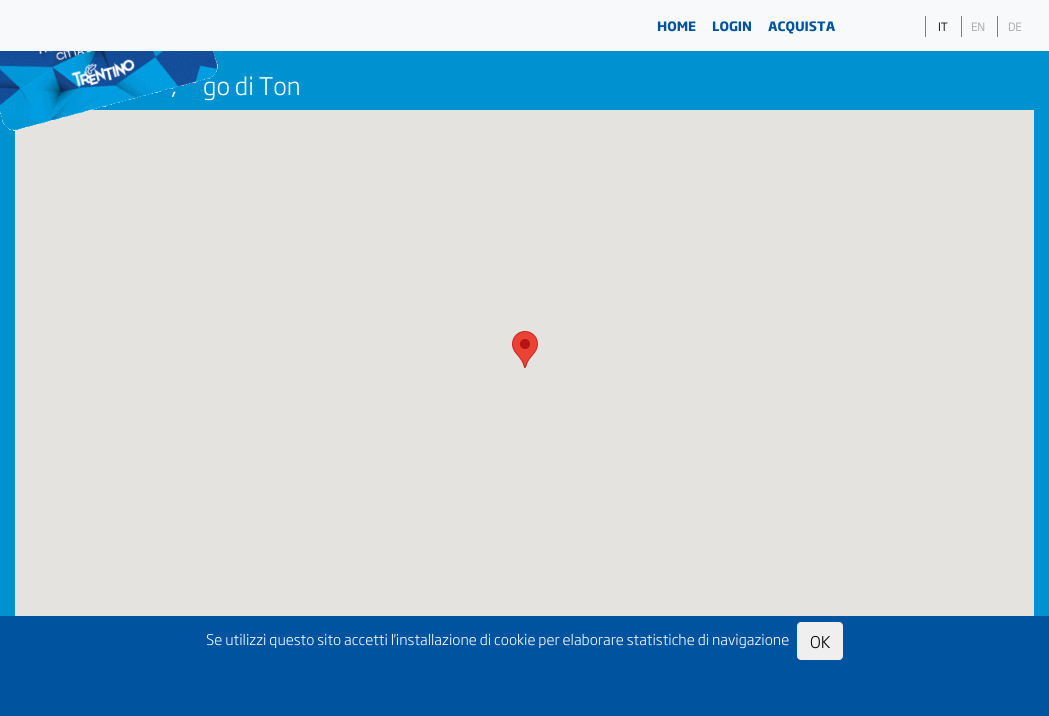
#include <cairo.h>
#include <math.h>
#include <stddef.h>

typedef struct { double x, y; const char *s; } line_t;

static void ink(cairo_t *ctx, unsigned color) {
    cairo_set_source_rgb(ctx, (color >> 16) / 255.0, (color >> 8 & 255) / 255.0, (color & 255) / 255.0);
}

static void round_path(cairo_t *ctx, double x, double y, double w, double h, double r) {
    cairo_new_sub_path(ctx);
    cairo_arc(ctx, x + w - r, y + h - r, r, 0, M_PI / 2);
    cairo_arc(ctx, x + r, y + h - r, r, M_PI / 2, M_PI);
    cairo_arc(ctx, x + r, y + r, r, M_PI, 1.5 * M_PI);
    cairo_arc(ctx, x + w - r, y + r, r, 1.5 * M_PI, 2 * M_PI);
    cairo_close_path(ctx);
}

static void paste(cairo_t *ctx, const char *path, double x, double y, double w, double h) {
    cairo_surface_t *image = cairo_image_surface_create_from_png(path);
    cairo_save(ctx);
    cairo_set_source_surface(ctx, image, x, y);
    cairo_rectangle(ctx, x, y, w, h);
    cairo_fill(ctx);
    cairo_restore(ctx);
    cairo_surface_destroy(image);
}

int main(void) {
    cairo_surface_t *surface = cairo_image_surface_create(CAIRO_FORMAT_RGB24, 1049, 716);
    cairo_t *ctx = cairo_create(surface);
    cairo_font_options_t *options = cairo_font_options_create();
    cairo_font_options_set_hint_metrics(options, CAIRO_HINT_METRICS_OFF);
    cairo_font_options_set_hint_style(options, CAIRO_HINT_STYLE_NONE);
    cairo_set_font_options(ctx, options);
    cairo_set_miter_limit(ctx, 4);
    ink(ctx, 0x0092D0);
    cairo_paint(ctx);
    ink(ctx, 0xF8F9FA);
    cairo_rectangle(ctx, 0, 0, 1049, 51);
    cairo_fill(ctx);
    cairo_select_font_face(ctx, "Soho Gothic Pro", CAIRO_FONT_SLANT_NORMAL, CAIRO_FONT_WEIGHT_BOLD);
    cairo_set_font_size(ctx, 12.75);
    ink(ctx, 0x00539F);
    {
        static const line_t items[] = {
            {657, 31, "HOME"},
            {712, 31, "LOGIN"},
            {768, 31, "ACQUISTA"},
        };
        for (size_t i = 0; i < sizeof items / sizeof *items; i++) {
            cairo_move_to(ctx, items[i].x, items[i].y);
            cairo_show_text(ctx, items[i].s);
        }
    }
    ink(ctx, 0x808080);
    cairo_rectangle(ctx, 925, 16, 1, 21);
    cairo_fill(ctx);
    cairo_select_font_face(ctx, "Soho Gothic Pro", CAIRO_FONT_SLANT_ITALIC, CAIRO_FONT_WEIGHT_BOLD);
    cairo_set_font_size(ctx, 11);
    ink(ctx, 0x262626);
    cairo_move_to(ctx, 938, 31);
    cairo_show_text(ctx, "IT");
    ink(ctx, 0x808080);
    cairo_rectangle(ctx, 961, 16, 1, 21);
    cairo_fill(ctx);
    ink(ctx, 0xB0B0B0);
    cairo_move_to(ctx, 971, 31);
    cairo_show_text(ctx, "EN");
    ink(ctx, 0x808080);
    cairo_rectangle(ctx, 997, 16, 1, 21);
    cairo_fill(ctx);
    ink(ctx, 0xB0B0B0);
    cairo_move_to(ctx, 1008, 31);
    cairo_show_text(ctx, "DE");
    cairo_select_font_face(ctx, "Soho Gothic Pro Light", CAIRO_FONT_SLANT_ITALIC, CAIRO_FONT_WEIGHT_NORMAL);
    cairo_set_font_size(ctx, 24);
    ink(ctx, 0xFFFFFF);
    cairo_move_to(ctx, 171, 95);
    cairo_show_text(ctx, ",");
    cairo_move_to(ctx, 203, 95);
    cairo_show_text(ctx, "go di Ton");
    ink(ctx, 0xE5E3DF);
    cairo_rectangle(ctx, 15, 110, 1019, 506);
    cairo_fill(ctx);
    paste(ctx, "media/1.png", 0, 51, 218, 80);
    paste(ctx, "media/2.png", 512, 331, 26, 37);
    ink(ctx, 0x00539F);
    cairo_rectangle(ctx, 0, 616, 1049, 100);
    cairo_fill(ctx);
    cairo_set_font_size(ctx, 14.4);
    ink(ctx, 0xFFFFFF);
    cairo_move_to(ctx, 206, 645);
    cairo_show_text(ctx, "Se utilizzi questo sito accetti l'installazione di cookie per elaborare statistiche di navigazione");
    ink(ctx, 0xEFEFEF);
    round_path(ctx, 797, 622, 46, 38, 4);
    cairo_fill(ctx);
    cairo_set_font_size(ctx, 16);
    ink(ctx, 0x000000);
    cairo_move_to(ctx, 810, 648);
    cairo_show_text(ctx, "OK");
    cairo_surface_write_to_png(surface, "image.png");
    cairo_font_options_destroy(options);
    cairo_destroy(ctx);
    cairo_surface_destroy(surface);
    return 0;
}
